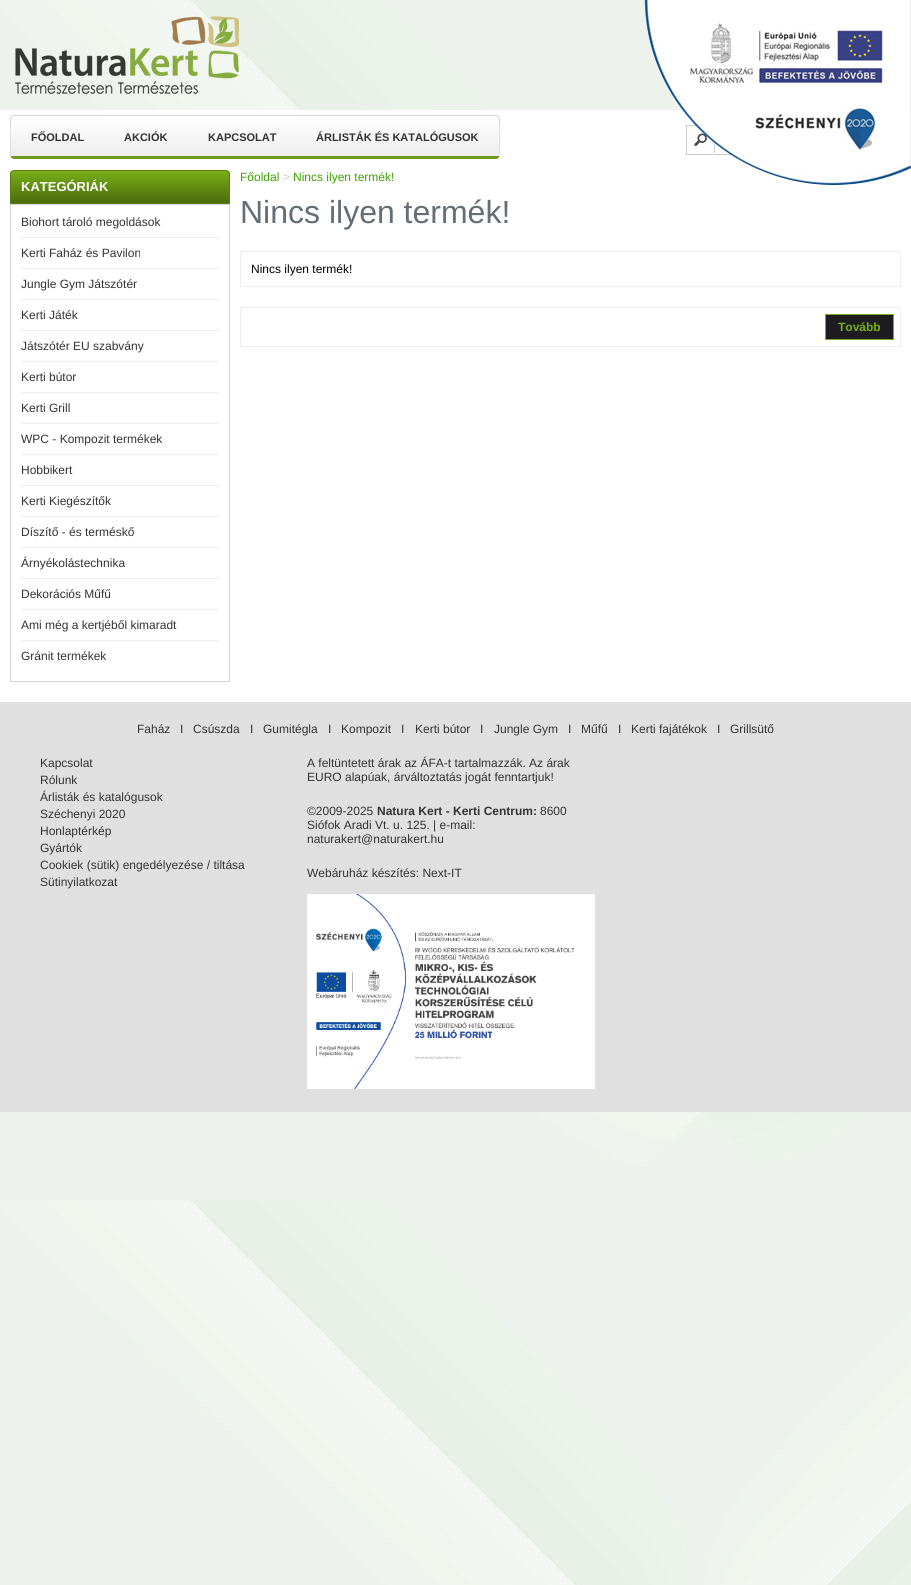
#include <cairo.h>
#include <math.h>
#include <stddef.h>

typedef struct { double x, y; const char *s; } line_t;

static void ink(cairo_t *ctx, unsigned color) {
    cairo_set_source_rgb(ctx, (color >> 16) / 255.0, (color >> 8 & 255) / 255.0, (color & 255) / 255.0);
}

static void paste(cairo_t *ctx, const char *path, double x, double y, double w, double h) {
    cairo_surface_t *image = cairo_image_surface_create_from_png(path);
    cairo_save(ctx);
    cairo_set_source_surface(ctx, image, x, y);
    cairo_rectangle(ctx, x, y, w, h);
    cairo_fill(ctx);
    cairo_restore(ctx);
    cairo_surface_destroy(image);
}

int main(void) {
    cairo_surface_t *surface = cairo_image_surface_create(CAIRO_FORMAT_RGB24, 911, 1585);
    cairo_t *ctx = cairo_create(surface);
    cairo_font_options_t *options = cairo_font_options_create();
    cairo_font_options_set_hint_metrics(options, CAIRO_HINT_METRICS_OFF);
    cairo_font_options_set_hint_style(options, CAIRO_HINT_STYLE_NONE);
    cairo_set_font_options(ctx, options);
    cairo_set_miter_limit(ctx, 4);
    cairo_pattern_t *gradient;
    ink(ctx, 0xFFFFFF);
    cairo_paint(ctx);
    paste(ctx, "media/1.png", 0, 0, 911, 1585);
    paste(ctx, "media/2.png", 15, 16, 224, 78);
    ink(ctx, 0xFFFFFF);
    cairo_rectangle(ctx, 0, 110, 911, 592);
    cairo_fill(ctx);
    cairo_save(ctx);
    cairo_new_path(ctx);
    cairo_move_to(ctx, 14, 115);
    cairo_line_to(ctx, 104, 115);
    cairo_line_to(ctx, 104, 159);
    cairo_line_to(ctx, 14, 159);
    cairo_curve_to(ctx, 12, 159, 10, 157, 10, 155);
    cairo_line_to(ctx, 10, 119);
    cairo_curve_to(ctx, 10, 117, 12, 115, 14, 115);
    cairo_close_path(ctx);
    cairo_clip(ctx);
    gradient = cairo_pattern_create_linear(58, 76, 58, 116);
    cairo_pattern_add_color_stop_rgba(gradient, 0, 1, 1, 1, 1);
    cairo_pattern_add_color_stop_rgba(gradient, 1, 0.933, 0.933, 0.933, 1);
    cairo_set_source(ctx, gradient);
    cairo_pattern_destroy(gradient);
    cairo_rectangle(ctx, 10, 115, 4, 1);
    cairo_fill(ctx);
    gradient = cairo_pattern_create_linear(58, 116, 58, 156);
    cairo_pattern_add_color_stop_rgba(gradient, 0, 1, 1, 1, 1);
    cairo_pattern_add_color_stop_rgba(gradient, 1, 0.933, 0.933, 0.933, 1);
    cairo_set_source(ctx, gradient);
    cairo_pattern_destroy(gradient);
    cairo_rectangle(ctx, 10, 116, 94, 40);
    cairo_fill(ctx);
    cairo_restore(ctx);
    ink(ctx, 0xD9D9D9);
    cairo_new_path(ctx);
    cairo_move_to(ctx, 14, 115);
    cairo_line_to(ctx, 11, 116);
    cairo_line_to(ctx, 12, 117);
    cairo_line_to(ctx, 14, 116);
    cairo_line_to(ctx, 104, 116);
    cairo_line_to(ctx, 104, 115);
    cairo_close_path(ctx);
    cairo_fill(ctx);
    ink(ctx, 0x6E9A1E);
    cairo_new_path(ctx);
    cairo_move_to(ctx, 104, 159);
    cairo_line_to(ctx, 104, 156);
    cairo_line_to(ctx, 14, 156);
    cairo_line_to(ctx, 11, 156);
    cairo_line_to(ctx, 11, 157);
    cairo_curve_to(ctx, 11, 158, 13, 159, 14, 159);
    cairo_close_path(ctx);
    cairo_fill(ctx);
    ink(ctx, 0xD9D9D9);
    cairo_new_path(ctx);
    cairo_move_to(ctx, 10, 119);
    cairo_line_to(ctx, 10, 155);
    cairo_line_to(ctx, 11, 157);
    cairo_line_to(ctx, 11, 156);
    cairo_curve_to(ctx, 11, 155, 10, 118, 12, 117);
    cairo_line_to(ctx, 11, 116);
    cairo_close_path(ctx);
    cairo_fill(ctx);
    cairo_select_font_face(ctx, "Liberation Sans", CAIRO_FONT_SLANT_NORMAL, CAIRO_FONT_WEIGHT_BOLD);
    cairo_set_font_size(ctx, 11);
    ink(ctx, 0x333333);
    cairo_move_to(ctx, 31, 141);
    cairo_show_text(ctx, "FŐOLDAL");
    gradient = cairo_pattern_create_linear(146, 116, 146, 156);
    cairo_pattern_add_color_stop_rgba(gradient, 0, 1, 1, 1, 1);
    cairo_pattern_add_color_stop_rgba(gradient, 1, 0.933, 0.933, 0.933, 1);
    cairo_set_source(ctx, gradient);
    cairo_pattern_destroy(gradient);
    cairo_rectangle(ctx, 104, 122, 84, 34);
    cairo_fill(ctx);
    ink(ctx, 0xD9D9D9);
    cairo_rectangle(ctx, 104, 115, 192, 1);
    cairo_fill(ctx);
    ink(ctx, 0x6E9A1E);
    cairo_rectangle(ctx, 104, 156, 192, 3);
    cairo_fill(ctx);
    ink(ctx, 0x333333);
    cairo_move_to(ctx, 124, 141);
    cairo_show_text(ctx, "AKCIÓK");
    gradient = cairo_pattern_create_linear(242, 116, 242, 156);
    cairo_pattern_add_color_stop_rgba(gradient, 0, 1, 1, 1, 1);
    cairo_pattern_add_color_stop_rgba(gradient, 1, 0.933, 0.933, 0.933, 1);
    cairo_set_source(ctx, gradient);
    cairo_pattern_destroy(gradient);
    cairo_rectangle(ctx, 188, 122, 108, 34);
    cairo_fill(ctx);
    ink(ctx, 0x333333);
    cairo_move_to(ctx, 208, 141);
    cairo_show_text(ctx, "KAPCSOLAT");
    cairo_save(ctx);
    cairo_new_path(ctx);
    cairo_move_to(ctx, 296, 115);
    cairo_line_to(ctx, 496, 115);
    cairo_curve_to(ctx, 498, 115, 500, 117, 500, 119);
    cairo_line_to(ctx, 500, 155);
    cairo_curve_to(ctx, 500, 157, 498, 159, 496, 159);
    cairo_line_to(ctx, 296, 159);
    cairo_close_path(ctx);
    cairo_clip(ctx);
    gradient = cairo_pattern_create_linear(398, 116, 398, 156);
    cairo_pattern_add_color_stop_rgba(gradient, 0, 1, 1, 1, 1);
    cairo_pattern_add_color_stop_rgba(gradient, 1, 0.933, 0.933, 0.933, 1);
    cairo_set_source(ctx, gradient);
    cairo_pattern_destroy(gradient);
    cairo_rectangle(ctx, 296, 116, 204, 40);
    cairo_fill(ctx);
    cairo_restore(ctx);
    ink(ctx, 0xD9D9D9);
    cairo_new_path(ctx);
    cairo_move_to(ctx, 296, 115);
    cairo_line_to(ctx, 296, 116);
    cairo_line_to(ctx, 496, 116);
    cairo_line_to(ctx, 498, 117);
    cairo_line_to(ctx, 499, 116);
    cairo_line_to(ctx, 496, 115);
    cairo_close_path(ctx);
    cairo_fill(ctx);
    cairo_new_path(ctx);
    cairo_move_to(ctx, 499, 156);
    cairo_curve_to(ctx, 499, 155, 500, 118, 498, 117);
    cairo_line_to(ctx, 499, 116);
    cairo_line_to(ctx, 500, 119);
    cairo_curve_to(ctx, 500, 122, 501, 155, 499, 157);
    cairo_close_path(ctx);
    cairo_fill(ctx);
    ink(ctx, 0x6E9A1E);
    cairo_new_path(ctx);
    cairo_move_to(ctx, 296, 156);
    cairo_line_to(ctx, 296, 159);
    cairo_line_to(ctx, 496, 159);
    cairo_curve_to(ctx, 497, 159, 499, 158, 499, 157);
    cairo_line_to(ctx, 499, 156);
    cairo_line_to(ctx, 496, 156);
    cairo_close_path(ctx);
    cairo_fill(ctx);
    ink(ctx, 0x333333);
    cairo_move_to(ctx, 316, 141);
    cairo_show_text(ctx, "ÁRLISTÁK ÉS KATALÓGUSOK");
    cairo_rectangle(ctx, 686.5, 125.5, 219, 29);
    ink(ctx, 0xCCCCCC);
    cairo_set_line_width(ctx, 1);
    cairo_stroke(ctx);
    paste(ctx, "media/3.png", 694, 133, 13, 13);
    cairo_rectangle(ctx, 714, 142, 1, 11);
    cairo_fill(ctx);
    paste(ctx, "media/4.png", 644, 0, 267, 185);
    cairo_save(ctx);
    cairo_new_path(ctx);
    cairo_move_to(ctx, 14, 170);
    cairo_line_to(ctx, 226, 170);
    cairo_curve_to(ctx, 228, 170, 230, 172, 230, 174);
    cairo_line_to(ctx, 230, 204);
    cairo_line_to(ctx, 10, 204);
    cairo_line_to(ctx, 10, 174);
    cairo_curve_to(ctx, 10, 172, 12, 170, 14, 170);
    cairo_close_path(ctx);
    cairo_clip(ctx);
    gradient = cairo_pattern_create_linear(120, 171, 120, 203);
    cairo_pattern_add_color_stop_rgba(gradient, 0, 0.475, 0.682, 0.094, 1);
    cairo_pattern_add_color_stop_rgba(gradient, 1, 0.29, 0.424, 0.047, 1);
    cairo_set_source(ctx, gradient);
    cairo_pattern_destroy(gradient);
    cairo_rectangle(ctx, 10, 171, 220, 32);
    cairo_fill(ctx);
    cairo_restore(ctx);
    cairo_new_path(ctx);
    cairo_move_to(ctx, 14, 170.5);
    cairo_line_to(ctx, 226, 170.5);
    cairo_curve_to(ctx, 228, 170.5, 229.5, 172, 229.5, 174);
    cairo_line_to(ctx, 229.5, 203.5);
    cairo_line_to(ctx, 10.5, 203.5);
    cairo_line_to(ctx, 10.5, 174);
    cairo_curve_to(ctx, 10.5, 172, 12, 170.5, 14, 170.5);
    cairo_close_path(ctx);
    ink(ctx, 0x577B15);
    cairo_stroke(ctx);
    cairo_set_font_size(ctx, 13);
    ink(ctx, 0xFFFFFF);
    cairo_move_to(ctx, 21, 191);
    cairo_show_text(ctx, "KATEGÓRIÁK");
    cairo_rectangle(ctx, 10.5, 204.5, 219, 477);
    ink(ctx, 0xD5D5D5);
    cairo_stroke(ctx);
    cairo_select_font_face(ctx, "Liberation Sans", CAIRO_FONT_SLANT_NORMAL, CAIRO_FONT_WEIGHT_NORMAL);
    cairo_set_font_size(ctx, 12);
    ink(ctx, 0x333333);
    cairo_move_to(ctx, 21, 226);
    cairo_show_text(ctx, "Biohort tároló megoldások");
    ink(ctx, 0xEEEEEE);
    cairo_rectangle(ctx, 21, 237, 198, 1);
    cairo_fill(ctx);
    ink(ctx, 0x333333);
    cairo_move_to(ctx, 21, 257);
    cairo_show_text(ctx, "Kerti Faház és Pavilon");
    ink(ctx, 0xEEEEEE);
    cairo_rectangle(ctx, 21, 268, 198, 1);
    cairo_fill(ctx);
    ink(ctx, 0x333333);
    cairo_move_to(ctx, 21, 288);
    cairo_show_text(ctx, "Jungle Gym Játszótér");
    ink(ctx, 0xEEEEEE);
    cairo_rectangle(ctx, 21, 299, 198, 1);
    cairo_fill(ctx);
    ink(ctx, 0x333333);
    cairo_move_to(ctx, 21, 319);
    cairo_show_text(ctx, "Kerti Játék");
    ink(ctx, 0xEEEEEE);
    cairo_rectangle(ctx, 21, 330, 198, 1);
    cairo_fill(ctx);
    ink(ctx, 0x333333);
    cairo_move_to(ctx, 21, 350);
    cairo_show_text(ctx, "Játszótér EU szabvány");
    ink(ctx, 0xEEEEEE);
    cairo_rectangle(ctx, 21, 361, 198, 1);
    cairo_fill(ctx);
    ink(ctx, 0x333333);
    cairo_move_to(ctx, 21, 381);
    cairo_show_text(ctx, "Kerti bútor");
    ink(ctx, 0xEEEEEE);
    cairo_rectangle(ctx, 21, 392, 198, 1);
    cairo_fill(ctx);
    ink(ctx, 0x333333);
    cairo_move_to(ctx, 21, 412);
    cairo_show_text(ctx, "Kerti Grill");
    ink(ctx, 0xEEEEEE);
    cairo_rectangle(ctx, 21, 423, 198, 1);
    cairo_fill(ctx);
    ink(ctx, 0x333333);
    cairo_move_to(ctx, 21, 443);
    cairo_show_text(ctx, "WPC - Kompozit termékek");
    ink(ctx, 0xEEEEEE);
    cairo_rectangle(ctx, 21, 454, 198, 1);
    cairo_fill(ctx);
    ink(ctx, 0x333333);
    cairo_move_to(ctx, 21, 474);
    cairo_show_text(ctx, "Hobbikert");
    ink(ctx, 0xEEEEEE);
    cairo_rectangle(ctx, 21, 485, 198, 1);
    cairo_fill(ctx);
    ink(ctx, 0x333333);
    cairo_move_to(ctx, 21, 505);
    cairo_show_text(ctx, "Kerti Kiegészítők");
    ink(ctx, 0xEEEEEE);
    cairo_rectangle(ctx, 21, 516, 198, 1);
    cairo_fill(ctx);
    ink(ctx, 0x333333);
    cairo_move_to(ctx, 21, 536);
    cairo_show_text(ctx, "Díszítő - és terméskő");
    ink(ctx, 0xEEEEEE);
    cairo_rectangle(ctx, 21, 547, 198, 1);
    cairo_fill(ctx);
    ink(ctx, 0x333333);
    cairo_move_to(ctx, 21, 567);
    cairo_show_text(ctx, "Árnyékolástechnika");
    ink(ctx, 0xEEEEEE);
    cairo_rectangle(ctx, 21, 578, 198, 1);
    cairo_fill(ctx);
    ink(ctx, 0x333333);
    cairo_move_to(ctx, 21, 598);
    cairo_show_text(ctx, "Dekorációs Műfű");
    ink(ctx, 0xEEEEEE);
    cairo_rectangle(ctx, 21, 609, 198, 1);
    cairo_fill(ctx);
    ink(ctx, 0x333333);
    cairo_move_to(ctx, 21, 629);
    cairo_show_text(ctx, "Ami még a kertjéből kimaradt");
    ink(ctx, 0xEEEEEE);
    cairo_rectangle(ctx, 21, 640, 198, 1);
    cairo_fill(ctx);
    ink(ctx, 0x333333);
    cairo_move_to(ctx, 21, 660);
    cairo_show_text(ctx, "Gránit termékek");
    ink(ctx, 0x3BA201);
    cairo_move_to(ctx, 240, 181);
    cairo_show_text(ctx, "Főoldal");
    ink(ctx, 0xCCCCCC);
    cairo_move_to(ctx, 283, 181);
    cairo_show_text(ctx, ">");
    ink(ctx, 0x3BA201);
    cairo_move_to(ctx, 293, 181);
    cairo_show_text(ctx, "Nincs ilyen termék!");
    cairo_set_font_size(ctx, 32);
    ink(ctx, 0x636E75);
    cairo_move_to(ctx, 240, 223);
    cairo_show_text(ctx, "Nincs ilyen termék!");
    cairo_rectangle(ctx, 240.5, 251.5, 660, 35);
    ink(ctx, 0xEEEEEE);
    cairo_stroke(ctx);
    cairo_set_font_size(ctx, 12);
    ink(ctx, 0x000000);
    cairo_move_to(ctx, 251, 273);
    cairo_show_text(ctx, "Nincs ilyen termék!");
    cairo_rectangle(ctx, 240.5, 307.5, 660, 39);
    ink(ctx, 0xEEEEEE);
    cairo_stroke(ctx);
    ink(ctx, 0x1D1C21);
    cairo_rectangle(ctx, 825.5, 314.5, 68, 25);
    cairo_fill_preserve(ctx);
    ink(ctx, 0x79AE18);
    cairo_stroke(ctx);
    cairo_select_font_face(ctx, "Liberation Sans", CAIRO_FONT_SLANT_NORMAL, CAIRO_FONT_WEIGHT_BOLD);
    cairo_move_to(ctx, 838, 331);
    cairo_show_text(ctx, "Tovább");
    ink(ctx, 0xE0E0E0);
    cairo_rectangle(ctx, 0, 702, 911, 410);
    cairo_fill(ctx);
    cairo_select_font_face(ctx, "Liberation Sans", CAIRO_FONT_SLANT_NORMAL, CAIRO_FONT_WEIGHT_NORMAL);
    ink(ctx, 0x333333);
    {
        static const line_t items[] = {
            {137, 733, "Faház"},
            {180, 733, "I"},
            {193, 733, "Csúszda"},
            {250, 733, "I"},
            {263, 733, "Gumitégla"},
            {328, 733, "I"},
            {341, 733, "Kompozit"},
            {401, 733, "I"},
            {415, 733, "Kerti bútor"},
            {480, 733, "I"},
            {494, 733, "Jungle Gym"},
            {568, 733, "I"},
            {581, 733, "Műfű"},
            {618, 733, "I"},
            {631, 733, "Kerti fajátékok"},
            {717, 733, "I"},
            {730, 733, "Grillsütő"},
            {40, 767, "Kapcsolat"},
            {40, 784, "Rólunk"},
            {40, 801, "Árlisták és katalógusok"},
            {40, 818, "Széchenyi 2020"},
            {40, 835, "Honlaptérkép"},
            {40, 852, "Gyártók"},
            {40, 869, "Cookiek (sütik) engedélyezése / tiltása"},
            {40, 886, "Sütinyilatkozat"},
            {307, 767, "A feltüntetett árak az ÁFA-t tartalmazzák. Az árak"},
            {307, 781, "EURO alapúak, árváltoztatás jogát fenntartjuk!"},
            {307, 815, "©2009-2025"},
        };
        for (size_t i = 0; i < sizeof items / sizeof *items; i++) {
            cairo_move_to(ctx, items[i].x, items[i].y);
            cairo_show_text(ctx, items[i].s);
        }
    }
    cairo_select_font_face(ctx, "Liberation Sans", CAIRO_FONT_SLANT_NORMAL, CAIRO_FONT_WEIGHT_BOLD);
    cairo_move_to(ctx, 377, 815);
    cairo_show_text(ctx, "Natura Kert - Kerti Centrum:");
    cairo_select_font_face(ctx, "Liberation Sans", CAIRO_FONT_SLANT_NORMAL, CAIRO_FONT_WEIGHT_NORMAL);
    {
        static const line_t items[] = {
            {540, 815, "8600"},
            {307, 829, "Siófok Aradi Vt. u. 125. | e-mail:"},
            {307, 843, "naturakert@naturakert.hu"},
            {307, 877, "Webáruház készítés: Next-IT"},
        };
        for (size_t i = 0; i < sizeof items / sizeof *items; i++) {
            cairo_move_to(ctx, items[i].x, items[i].y);
            cairo_show_text(ctx, items[i].s);
        }
    }
    paste(ctx, "media/5.png", 307, 894, 288, 195);
    cairo_surface_write_to_png(surface, "image.png");
    cairo_font_options_destroy(options);
    cairo_destroy(ctx);
    cairo_surface_destroy(surface);
    return 0;
}
